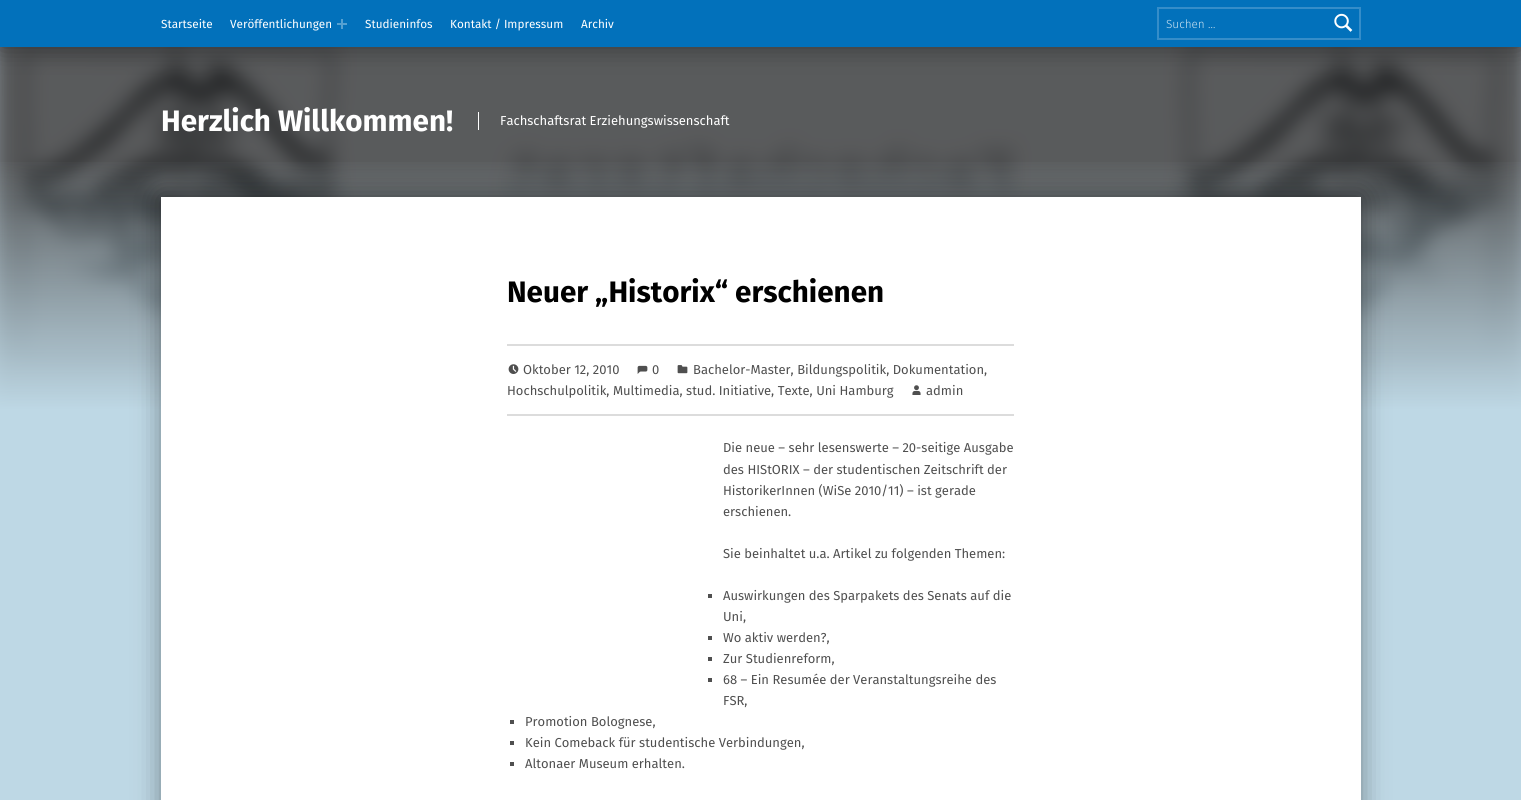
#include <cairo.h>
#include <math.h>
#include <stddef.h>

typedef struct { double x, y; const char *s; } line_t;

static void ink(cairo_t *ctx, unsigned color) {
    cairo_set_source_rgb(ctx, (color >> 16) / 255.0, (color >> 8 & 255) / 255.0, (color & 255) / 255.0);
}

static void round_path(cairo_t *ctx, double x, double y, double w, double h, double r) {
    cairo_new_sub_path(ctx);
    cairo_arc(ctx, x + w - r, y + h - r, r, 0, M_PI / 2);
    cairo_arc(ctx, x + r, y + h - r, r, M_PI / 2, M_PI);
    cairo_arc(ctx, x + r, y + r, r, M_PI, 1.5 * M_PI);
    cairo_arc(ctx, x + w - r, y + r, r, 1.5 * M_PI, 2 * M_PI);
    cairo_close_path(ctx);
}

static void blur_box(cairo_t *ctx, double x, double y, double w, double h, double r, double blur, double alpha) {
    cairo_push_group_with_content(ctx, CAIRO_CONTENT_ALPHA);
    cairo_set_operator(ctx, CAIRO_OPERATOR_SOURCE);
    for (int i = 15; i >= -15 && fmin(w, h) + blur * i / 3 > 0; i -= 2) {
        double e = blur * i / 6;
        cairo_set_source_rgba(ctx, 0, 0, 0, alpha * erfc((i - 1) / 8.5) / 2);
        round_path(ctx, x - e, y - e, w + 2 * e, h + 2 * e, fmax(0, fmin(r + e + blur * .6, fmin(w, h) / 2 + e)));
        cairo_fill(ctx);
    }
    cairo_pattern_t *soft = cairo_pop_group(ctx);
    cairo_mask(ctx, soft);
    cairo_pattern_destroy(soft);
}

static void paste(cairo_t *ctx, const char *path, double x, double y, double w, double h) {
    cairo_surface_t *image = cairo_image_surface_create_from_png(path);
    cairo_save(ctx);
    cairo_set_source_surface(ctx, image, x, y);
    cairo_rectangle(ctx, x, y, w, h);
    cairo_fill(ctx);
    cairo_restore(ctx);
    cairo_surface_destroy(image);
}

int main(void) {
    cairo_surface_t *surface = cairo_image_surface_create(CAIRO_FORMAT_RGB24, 1521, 800);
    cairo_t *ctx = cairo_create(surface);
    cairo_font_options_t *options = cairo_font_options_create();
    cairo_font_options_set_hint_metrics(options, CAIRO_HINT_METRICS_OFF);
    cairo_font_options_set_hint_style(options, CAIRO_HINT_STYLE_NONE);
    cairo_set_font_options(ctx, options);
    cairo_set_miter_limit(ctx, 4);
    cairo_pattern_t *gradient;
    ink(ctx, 0xBED8E5);
    cairo_paint(ctx);
    paste(ctx, "media/2.png", 0, 47, 1521, 363);
    ink(ctx, 0x000000);
    blur_box(ctx, 0, 0, 1521, 47, 0, 13, 0.4);
    ink(ctx, 0x0271BB);
    cairo_rectangle(ctx, 0, 0, 1521, 47);
    cairo_fill(ctx);
    cairo_select_font_face(ctx, "Fira Sans", CAIRO_FONT_SLANT_NORMAL, CAIRO_FONT_WEIGHT_NORMAL);
    cairo_set_font_size(ctx, 11.75);
    ink(ctx, 0xFFFFFF);
    cairo_move_to(ctx, 161, 28);
    cairo_show_text(ctx, "Startseite");
    cairo_move_to(ctx, 230, 28);
    cairo_show_text(ctx, "Veröffentlichungen");
    ink(ctx, 0x55A0D1);
    cairo_rectangle(ctx, 337, 23, 10, 2);
    cairo_fill(ctx);
    cairo_rectangle(ctx, 341, 19, 2, 10);
    cairo_fill(ctx);
    ink(ctx, 0xFFFFFF);
    {
        static const line_t items[] = {
            {365, 28, "Studieninfos"},
            {450, 28, "Kontakt / Impressum"},
            {581, 28, "Archiv"},
        };
        for (size_t i = 0; i < sizeof items / sizeof *items; i++) {
            cairo_move_to(ctx, items[i].x, items[i].y);
            cairo_show_text(ctx, items[i].s);
        }
    }
    cairo_rectangle(ctx, 1158, 8, 202, 31);
    ink(ctx, 0x358DC9);
    cairo_stroke(ctx);
    cairo_select_font_face(ctx, "Fira Sans Light", CAIRO_FONT_SLANT_NORMAL, CAIRO_FONT_WEIGHT_NORMAL);
    ink(ctx, 0xCCE3F1);
    cairo_move_to(ctx, 1166, 28);
    cairo_show_text(ctx, "Suchen …");
    paste(ctx, "media/1.png", 1334, 13, 19, 19);
    cairo_select_font_face(ctx, "Fira Sans", CAIRO_FONT_SLANT_NORMAL, CAIRO_FONT_WEIGHT_BOLD);
    cairo_set_font_size(ctx, 29.6);
    ink(ctx, 0xFFFFFF);
    cairo_move_to(ctx, 161, 131);
    cairo_show_text(ctx, "Herzlich Willkommen!");
    cairo_rectangle(ctx, 478, 112, 1, 18);
    cairo_fill(ctx);
    cairo_select_font_face(ctx, "Fira Sans", CAIRO_FONT_SLANT_NORMAL, CAIRO_FONT_WEIGHT_NORMAL);
    cairo_set_font_size(ctx, 13);
    cairo_move_to(ctx, 500, 125);
    cairo_show_text(ctx, "Fachschaftsrat Erziehungswissenschaft");
    gradient = cairo_pattern_create_linear(761, 156, 761, 411);
    cairo_pattern_add_color_stop_rgba(gradient, 0, 0.745, 0.847, 0.898, 0);
    cairo_pattern_add_color_stop_rgba(gradient, 1, 0.745, 0.847, 0.898, 1);
    cairo_set_source(ctx, gradient);
    cairo_pattern_destroy(gradient);
    cairo_rectangle(ctx, 0, 162, 1521, 248);
    cairo_fill(ctx);
    ink(ctx, 0x000000);
    blur_box(ctx, 161, 197, 1200, 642, 0, 13, 0.4);
    ink(ctx, 0xFFFFFF);
    cairo_rectangle(ctx, 161, 197, 1200, 603);
    cairo_fill(ctx);
    cairo_select_font_face(ctx, "Fira Sans", CAIRO_FONT_SLANT_NORMAL, CAIRO_FONT_WEIGHT_BOLD);
    cairo_set_font_size(ctx, 29.6);
    ink(ctx, 0x000000);
    cairo_move_to(ctx, 507, 302);
    cairo_show_text(ctx, "Neuer „Historix“ erschienen");
    ink(ctx, 0xDCDCDC);
    cairo_rectangle(ctx, 507, 344, 507, 2);
    cairo_fill(ctx);
    cairo_rectangle(ctx, 507, 414, 507, 2);
    cairo_fill(ctx);
    paste(ctx, "media/3.png", 677, 365, 11, 9);
    cairo_select_font_face(ctx, "Fira Sans", CAIRO_FONT_SLANT_NORMAL, CAIRO_FONT_WEIGHT_NORMAL);
    cairo_set_font_size(ctx, 13);
    ink(ctx, 0x4F4F4F);
    cairo_move_to(ctx, 693, 374);
    cairo_show_text(ctx, "Bachelor-Master, Bildungspolitik, Dokumentation,");
    cairo_move_to(ctx, 507, 395);
    cairo_show_text(ctx, "Hochschulpolitik, Multimedia, stud. Initiative, Texte, Uni Hamburg");
    paste(ctx, "media/4.png", 508, 364, 11, 10);
    cairo_move_to(ctx, 523, 374);
    cairo_show_text(ctx, "Oktober 12, 2010");
    paste(ctx, "media/5.png", 637, 365, 11, 9);
    cairo_move_to(ctx, 652, 374);
    cairo_show_text(ctx, "0");
    paste(ctx, "media/6.png", 912, 385, 9, 10);
    {
        static const line_t items[] = {
            {926, 395, "admin"},
            {723, 452, "Die neue – sehr lesenswerte – 20-seitige Ausgabe"},
            {723, 474, "des HIStORIX – der studentischen Zeitschrift der"},
            {723, 495, "HistorikerInnen (WiSe 2010/11) – ist gerade"},
            {723, 516, "erschienen."},
            {723, 558, "Sie beinhaltet u.a. Artikel zu folgenden Themen:"},
        };
        for (size_t i = 0; i < sizeof items / sizeof *items; i++) {
            cairo_move_to(ctx, items[i].x, items[i].y);
            cairo_show_text(ctx, items[i].s);
        }
    }
    cairo_rectangle(ctx, 708, 594, 4, 4);
    cairo_fill(ctx);
    cairo_move_to(ctx, 723, 600);
    cairo_show_text(ctx, "Auswirkungen des Sparpakets des Senats auf die");
    cairo_move_to(ctx, 723, 621);
    cairo_show_text(ctx, "Uni,");
    cairo_rectangle(ctx, 708, 636, 4, 4);
    cairo_fill(ctx);
    cairo_move_to(ctx, 723, 642);
    cairo_show_text(ctx, "Wo aktiv werden?,");
    cairo_rectangle(ctx, 708, 657, 4, 4);
    cairo_fill(ctx);
    cairo_move_to(ctx, 723, 663);
    cairo_show_text(ctx, "Zur Studienreform,");
    cairo_rectangle(ctx, 708, 678, 4, 4);
    cairo_fill(ctx);
    cairo_move_to(ctx, 723, 684);
    cairo_show_text(ctx, "68 – Ein Resumée der Veranstaltungsreihe des");
    cairo_move_to(ctx, 723, 705);
    cairo_show_text(ctx, "FSR,");
    cairo_rectangle(ctx, 510, 720, 4, 4);
    cairo_fill(ctx);
    cairo_move_to(ctx, 525, 726);
    cairo_show_text(ctx, "Promotion Bolognese,");
    cairo_rectangle(ctx, 510, 741, 4, 4);
    cairo_fill(ctx);
    cairo_move_to(ctx, 525, 747);
    cairo_show_text(ctx, "Kein Comeback für studentische Verbindungen,");
    cairo_rectangle(ctx, 510, 762, 4, 4);
    cairo_fill(ctx);
    cairo_move_to(ctx, 525, 768);
    cairo_show_text(ctx, "Altonaer Museum erhalten.");
    cairo_surface_write_to_png(surface, "image.png");
    cairo_font_options_destroy(options);
    cairo_destroy(ctx);
    cairo_surface_destroy(surface);
    return 0;
}
